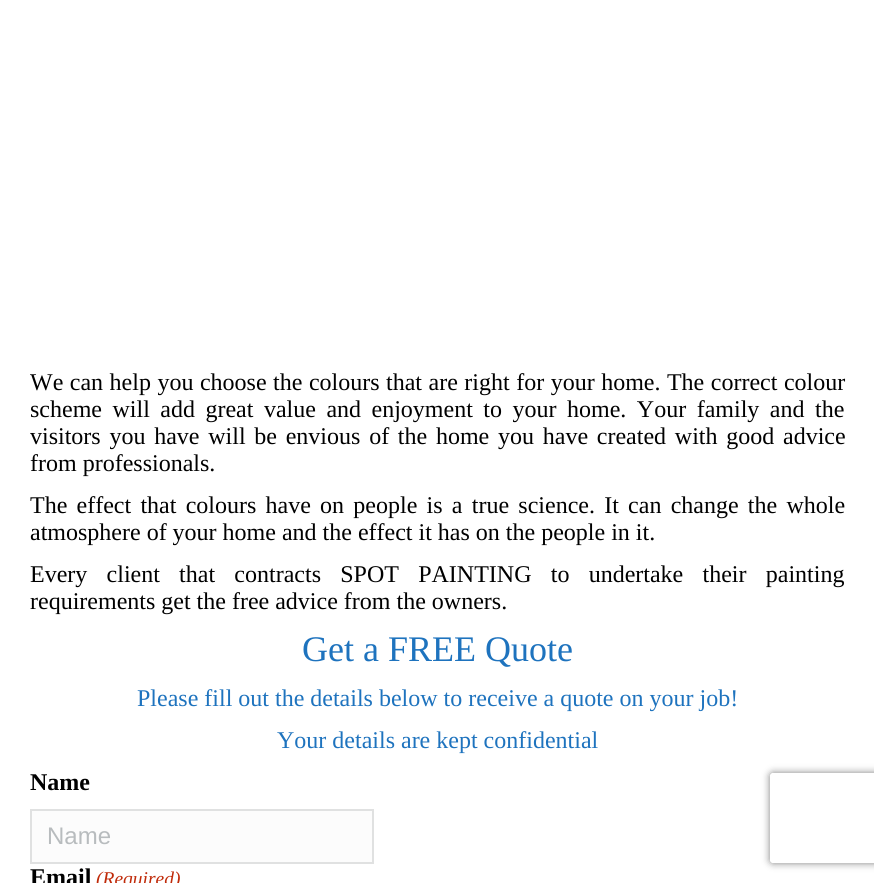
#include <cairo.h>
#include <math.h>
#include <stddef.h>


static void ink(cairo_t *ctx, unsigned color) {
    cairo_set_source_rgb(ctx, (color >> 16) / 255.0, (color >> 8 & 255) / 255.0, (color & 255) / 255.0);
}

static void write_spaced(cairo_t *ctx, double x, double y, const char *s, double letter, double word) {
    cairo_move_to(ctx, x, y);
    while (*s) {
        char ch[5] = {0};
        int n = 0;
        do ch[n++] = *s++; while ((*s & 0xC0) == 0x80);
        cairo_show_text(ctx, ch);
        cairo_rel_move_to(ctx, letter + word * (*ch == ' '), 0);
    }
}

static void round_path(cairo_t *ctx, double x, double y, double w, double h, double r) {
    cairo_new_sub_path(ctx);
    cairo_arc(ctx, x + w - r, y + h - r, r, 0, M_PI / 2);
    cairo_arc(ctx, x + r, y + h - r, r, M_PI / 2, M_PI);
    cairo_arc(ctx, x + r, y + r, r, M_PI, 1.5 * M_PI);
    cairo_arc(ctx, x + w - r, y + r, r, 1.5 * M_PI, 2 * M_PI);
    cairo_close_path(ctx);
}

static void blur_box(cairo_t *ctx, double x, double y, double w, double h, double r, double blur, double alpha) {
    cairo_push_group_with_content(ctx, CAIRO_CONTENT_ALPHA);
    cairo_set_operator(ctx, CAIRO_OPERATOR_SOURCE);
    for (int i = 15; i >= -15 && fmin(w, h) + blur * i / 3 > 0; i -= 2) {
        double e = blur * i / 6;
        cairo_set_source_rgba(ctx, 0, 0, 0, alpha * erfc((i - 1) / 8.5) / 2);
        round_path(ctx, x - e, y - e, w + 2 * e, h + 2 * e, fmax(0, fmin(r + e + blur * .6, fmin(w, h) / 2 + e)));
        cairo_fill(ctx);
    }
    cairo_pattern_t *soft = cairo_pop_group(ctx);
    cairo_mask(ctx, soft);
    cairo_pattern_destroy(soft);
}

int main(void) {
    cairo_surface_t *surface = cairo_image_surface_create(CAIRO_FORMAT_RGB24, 874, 883);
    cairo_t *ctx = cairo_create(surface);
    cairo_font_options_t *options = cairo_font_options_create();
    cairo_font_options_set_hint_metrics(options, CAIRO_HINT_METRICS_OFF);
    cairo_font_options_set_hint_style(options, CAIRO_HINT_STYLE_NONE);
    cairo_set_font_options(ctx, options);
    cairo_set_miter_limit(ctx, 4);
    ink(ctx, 0xFFFFFF);
    cairo_paint(ctx);
    cairo_select_font_face(ctx, "Liberation Serif", CAIRO_FONT_SLANT_NORMAL, CAIRO_FONT_WEIGHT_NORMAL);
    cairo_set_font_size(ctx, 24);
    ink(ctx, 0x000000);
    write_spaced(ctx, 30, 390, "We can help you choose the colours that are right for your home. The correct colour", 0, 0.5);
    write_spaced(ctx, 30, 417, "scheme will add great value and enjoyment to your home. Your family and the", 0, 4.5);
    write_spaced(ctx, 30, 444, "visitors you have will be envious of the home you have created with good advice", 0, 2.75);
    cairo_move_to(ctx, 30, 471);
    cairo_show_text(ctx, "from professionals.");
    write_spaced(ctx, 30, 513, "The effect that colours have on people is a true science. It can change the whole", 0, 3.25);
    cairo_move_to(ctx, 30, 540);
    cairo_show_text(ctx, "atmosphere of your home and the effect it has on the people in it.");
    write_spaced(ctx, 30, 582, "Every client that contracts SPOT PAINTING to undertake their painting", 0, 13.25);
    cairo_move_to(ctx, 30, 609);
    cairo_show_text(ctx, "requirements get the free advice from the owners.");
    cairo_set_font_size(ctx, 36);
    ink(ctx, 0x1E73BE);
    cairo_move_to(ctx, 302, 661);
    cairo_show_text(ctx, "Get a FREE Quote");
    cairo_set_font_size(ctx, 24);
    cairo_move_to(ctx, 137, 706);
    cairo_show_text(ctx, "Please fill out the details below to receive a quote on your job!");
    cairo_move_to(ctx, 277, 748);
    cairo_show_text(ctx, "Your details are kept confidential");
    cairo_select_font_face(ctx, "Liberation Serif", CAIRO_FONT_SLANT_NORMAL, CAIRO_FONT_WEIGHT_BOLD);
    ink(ctx, 0x000000);
    cairo_move_to(ctx, 30, 790);
    cairo_show_text(ctx, "Name");
    ink(ctx, 0xFCFCFC);
    cairo_rectangle(ctx, 31, 810, 342, 53);
    cairo_fill_preserve(ctx);
    ink(ctx, 0xE0E1E1);
    cairo_stroke(ctx);
    cairo_select_font_face(ctx, "Liberation Sans", CAIRO_FONT_SLANT_NORMAL, CAIRO_FONT_WEIGHT_NORMAL);
    ink(ctx, 0xB8BCBE);
    cairo_move_to(ctx, 47, 844);
    cairo_show_text(ctx, "Name");
    cairo_select_font_face(ctx, "Liberation Serif", CAIRO_FONT_SLANT_NORMAL, CAIRO_FONT_WEIGHT_BOLD);
    ink(ctx, 0x000000);
    cairo_move_to(ctx, 30, 885);
    cairo_show_text(ctx, "Email");
    cairo_select_font_face(ctx, "Liberation Serif", CAIRO_FONT_SLANT_ITALIC, CAIRO_FONT_WEIGHT_NORMAL);
    cairo_set_font_size(ctx, 19.5);
    ink(ctx, 0xC02B0A);
    cairo_move_to(ctx, 96, 885);
    cairo_show_text(ctx, "(Required)");
    cairo_save(ctx);
    cairo_set_fill_rule(ctx, CAIRO_FILL_RULE_EVEN_ODD);
    cairo_new_path(ctx);
    cairo_move_to(ctx, 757, 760);
    cairo_line_to(ctx, 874, 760);
    cairo_line_to(ctx, 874, 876);
    cairo_line_to(ctx, 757, 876);
    cairo_close_path(ctx);
    cairo_move_to(ctx, 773, 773);
    cairo_line_to(ctx, 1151, 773);
    cairo_curve_to(ctx, 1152.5, 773, 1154, 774.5, 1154, 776);
    cairo_line_to(ctx, 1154, 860);
    cairo_curve_to(ctx, 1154, 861.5, 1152.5, 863, 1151, 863);
    cairo_line_to(ctx, 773, 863);
    cairo_curve_to(ctx, 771.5, 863, 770, 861.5, 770, 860);
    cairo_line_to(ctx, 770, 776);
    cairo_curve_to(ctx, 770, 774.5, 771.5, 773, 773, 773);
    cairo_close_path(ctx);
    cairo_clip(ctx);
    ink(ctx, 0x808080);
    blur_box(ctx, 770, 773, 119, 90, 3, 4, 1);
    cairo_restore(ctx);
    cairo_surface_write_to_png(surface, "image.png");
    cairo_font_options_destroy(options);
    cairo_destroy(ctx);
    cairo_surface_destroy(surface);
    return 0;
}
